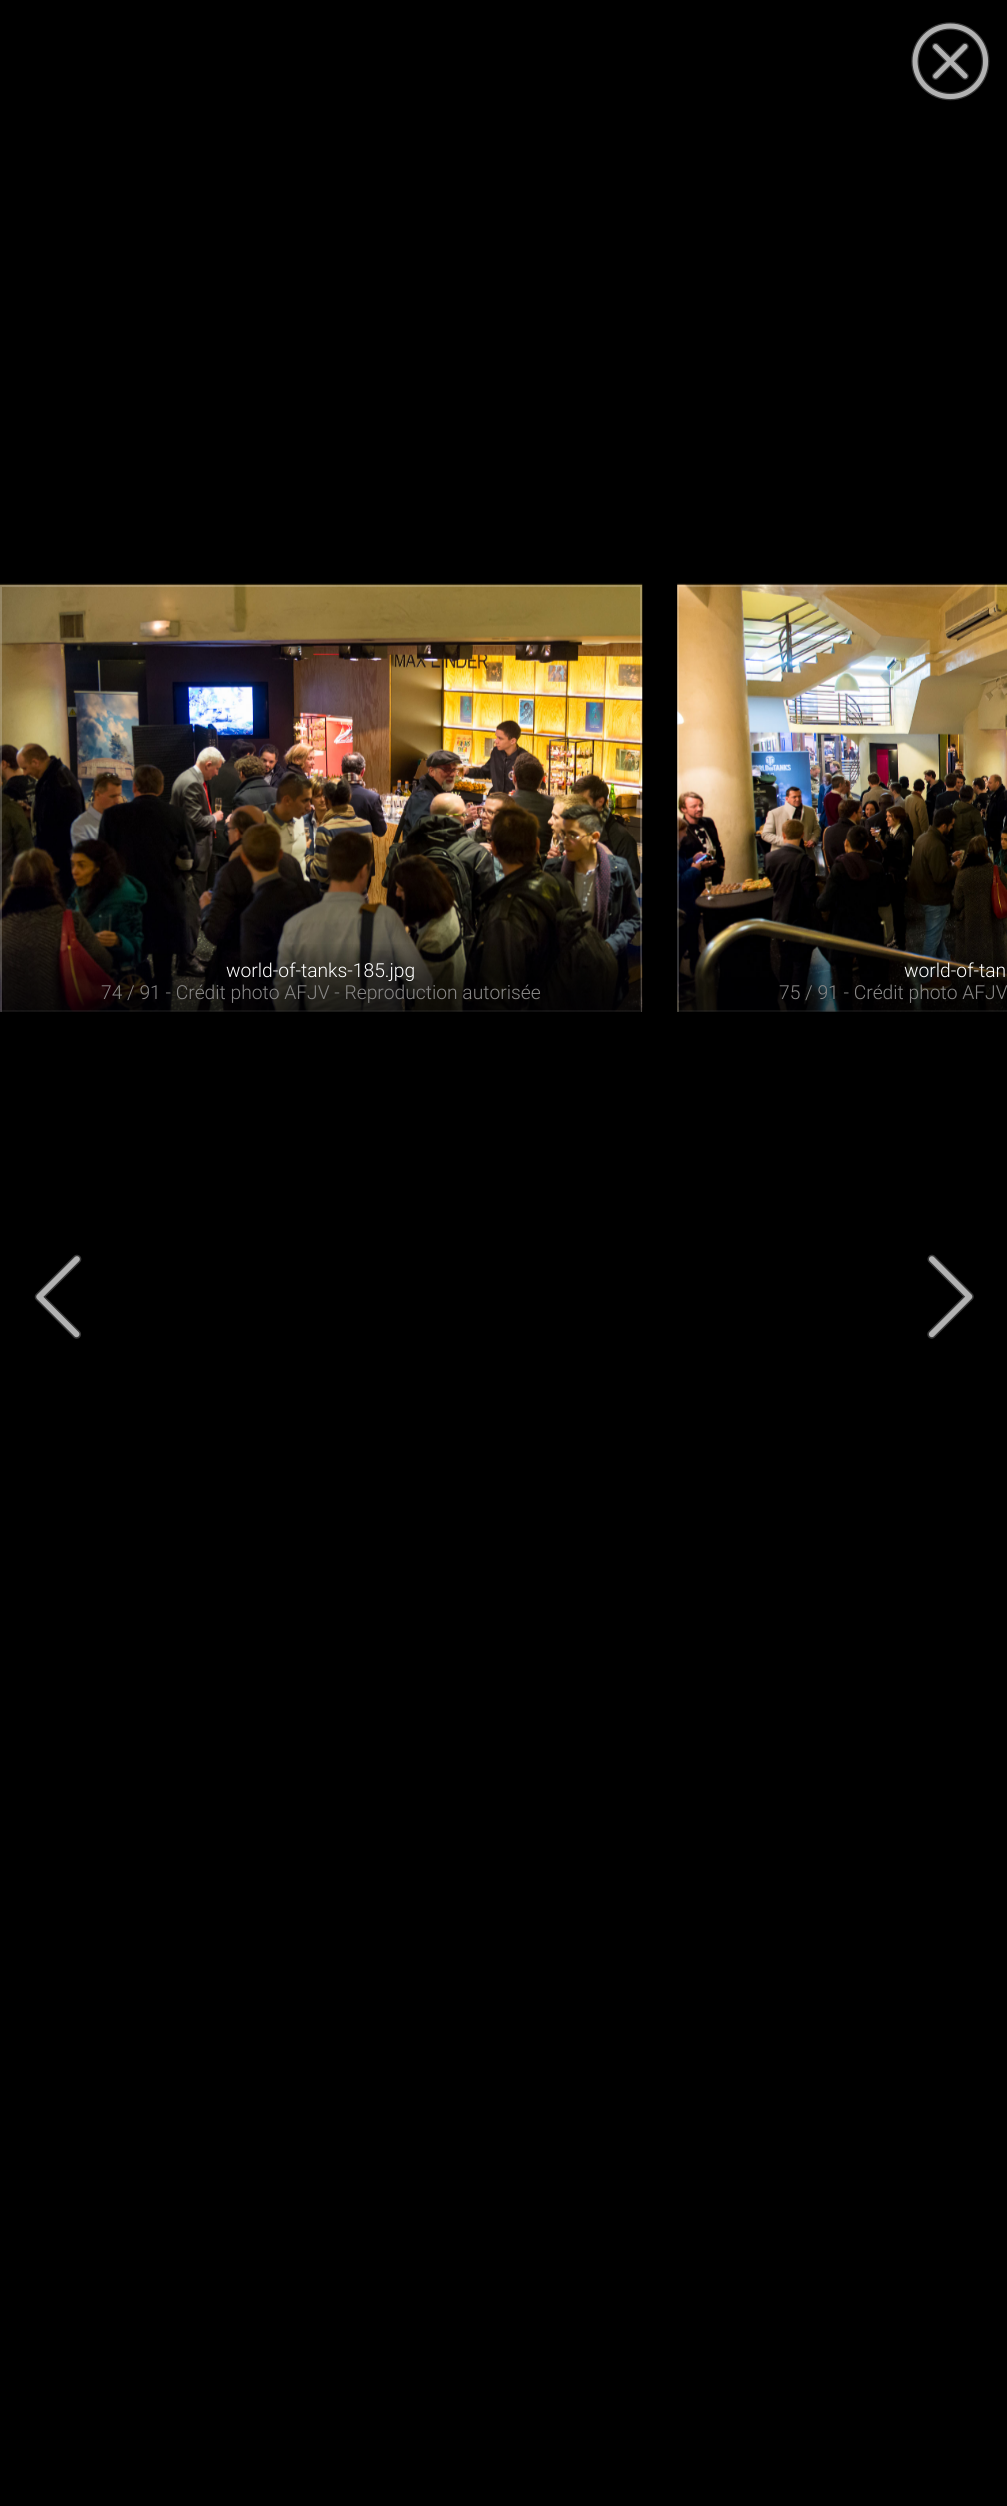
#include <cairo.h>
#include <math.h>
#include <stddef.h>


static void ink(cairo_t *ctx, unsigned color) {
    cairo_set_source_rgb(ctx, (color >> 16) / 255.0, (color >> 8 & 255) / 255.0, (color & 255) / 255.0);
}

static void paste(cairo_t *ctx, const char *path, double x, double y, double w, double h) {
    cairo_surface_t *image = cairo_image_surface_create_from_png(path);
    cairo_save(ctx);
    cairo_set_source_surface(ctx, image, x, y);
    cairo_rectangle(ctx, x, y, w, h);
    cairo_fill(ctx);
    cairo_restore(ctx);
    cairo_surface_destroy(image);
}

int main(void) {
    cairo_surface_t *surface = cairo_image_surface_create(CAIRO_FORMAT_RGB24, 1007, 2506);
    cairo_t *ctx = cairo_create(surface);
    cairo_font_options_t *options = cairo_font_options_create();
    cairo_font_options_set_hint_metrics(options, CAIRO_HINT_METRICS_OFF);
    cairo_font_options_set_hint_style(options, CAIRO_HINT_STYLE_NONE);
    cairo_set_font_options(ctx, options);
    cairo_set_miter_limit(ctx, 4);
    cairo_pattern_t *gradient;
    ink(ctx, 0x000000);
    cairo_paint(ctx);
    paste(ctx, "media/1.png", 911, 22, 79, 79);
    paste(ctx, "media/2.png", 0, 583, 643, 429);
    cairo_rectangle(ctx, 1, 586, 640, 425);
    cairo_set_source_rgba(ctx, 1, 1, 1, 0.2);
    cairo_stroke(ctx);
    gradient = cairo_pattern_create_linear(321, 942, 321, 1012);
    cairo_pattern_add_color_stop_rgba(gradient, 0, 0, 0, 0, 0);
    cairo_pattern_add_color_stop_rgba(gradient, 0.5, 0, 0, 0, 0.5);
    cairo_pattern_add_color_stop_rgba(gradient, 1, 0, 0, 0, 0.7);
    cairo_set_source(ctx, gradient);
    cairo_pattern_destroy(gradient);
    cairo_rectangle(ctx, 2, 944, 639, 68);
    cairo_fill(ctx);
    cairo_select_font_face(ctx, "Roboto Light", CAIRO_FONT_SLANT_NORMAL, CAIRO_FONT_WEIGHT_NORMAL);
    cairo_set_font_size(ctx, 19.25);
    ink(ctx, 0xFFFFFF);
    cairo_move_to(ctx, 226, 977);
    cairo_show_text(ctx, "world-of-tanks-185.jpg");
    ink(ctx, 0x888786);
    cairo_move_to(ctx, 101, 999);
    cairo_show_text(ctx, "74 / 91 - Crédit photo AFJV - Reproduction autorisée");
    paste(ctx, "media/3.png", 677, 583, 330, 429);
    cairo_rectangle(ctx, 678, 586, 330, 425);
    cairo_set_source_rgba(ctx, 1, 1, 1, 0.2);
    cairo_stroke(ctx);
    gradient = cairo_pattern_create_linear(998, 942, 998, 1012);
    cairo_pattern_add_color_stop_rgba(gradient, 0, 0, 0, 0, 0);
    cairo_pattern_add_color_stop_rgba(gradient, 0.5, 0, 0, 0, 0.5);
    cairo_pattern_add_color_stop_rgba(gradient, 1, 0, 0, 0, 0.7);
    cairo_set_source(ctx, gradient);
    cairo_pattern_destroy(gradient);
    cairo_rectangle(ctx, 679, 944, 328, 68);
    cairo_fill(ctx);
    ink(ctx, 0xFFFFFF);
    cairo_move_to(ctx, 904, 977);
    cairo_show_text(ctx, "world-of-tan");
    ink(ctx, 0x888786);
    cairo_move_to(ctx, 779, 999);
    cairo_show_text(ctx, "75 / 91 - Crédit photo AFJV");
    paste(ctx, "media/4.png", 34, 1254, 48, 85);
    paste(ctx, "media/5.png", 927, 1254, 47, 85);
    cairo_surface_write_to_png(surface, "image.png");
    cairo_font_options_destroy(options);
    cairo_destroy(ctx);
    cairo_surface_destroy(surface);
    return 0;
}
